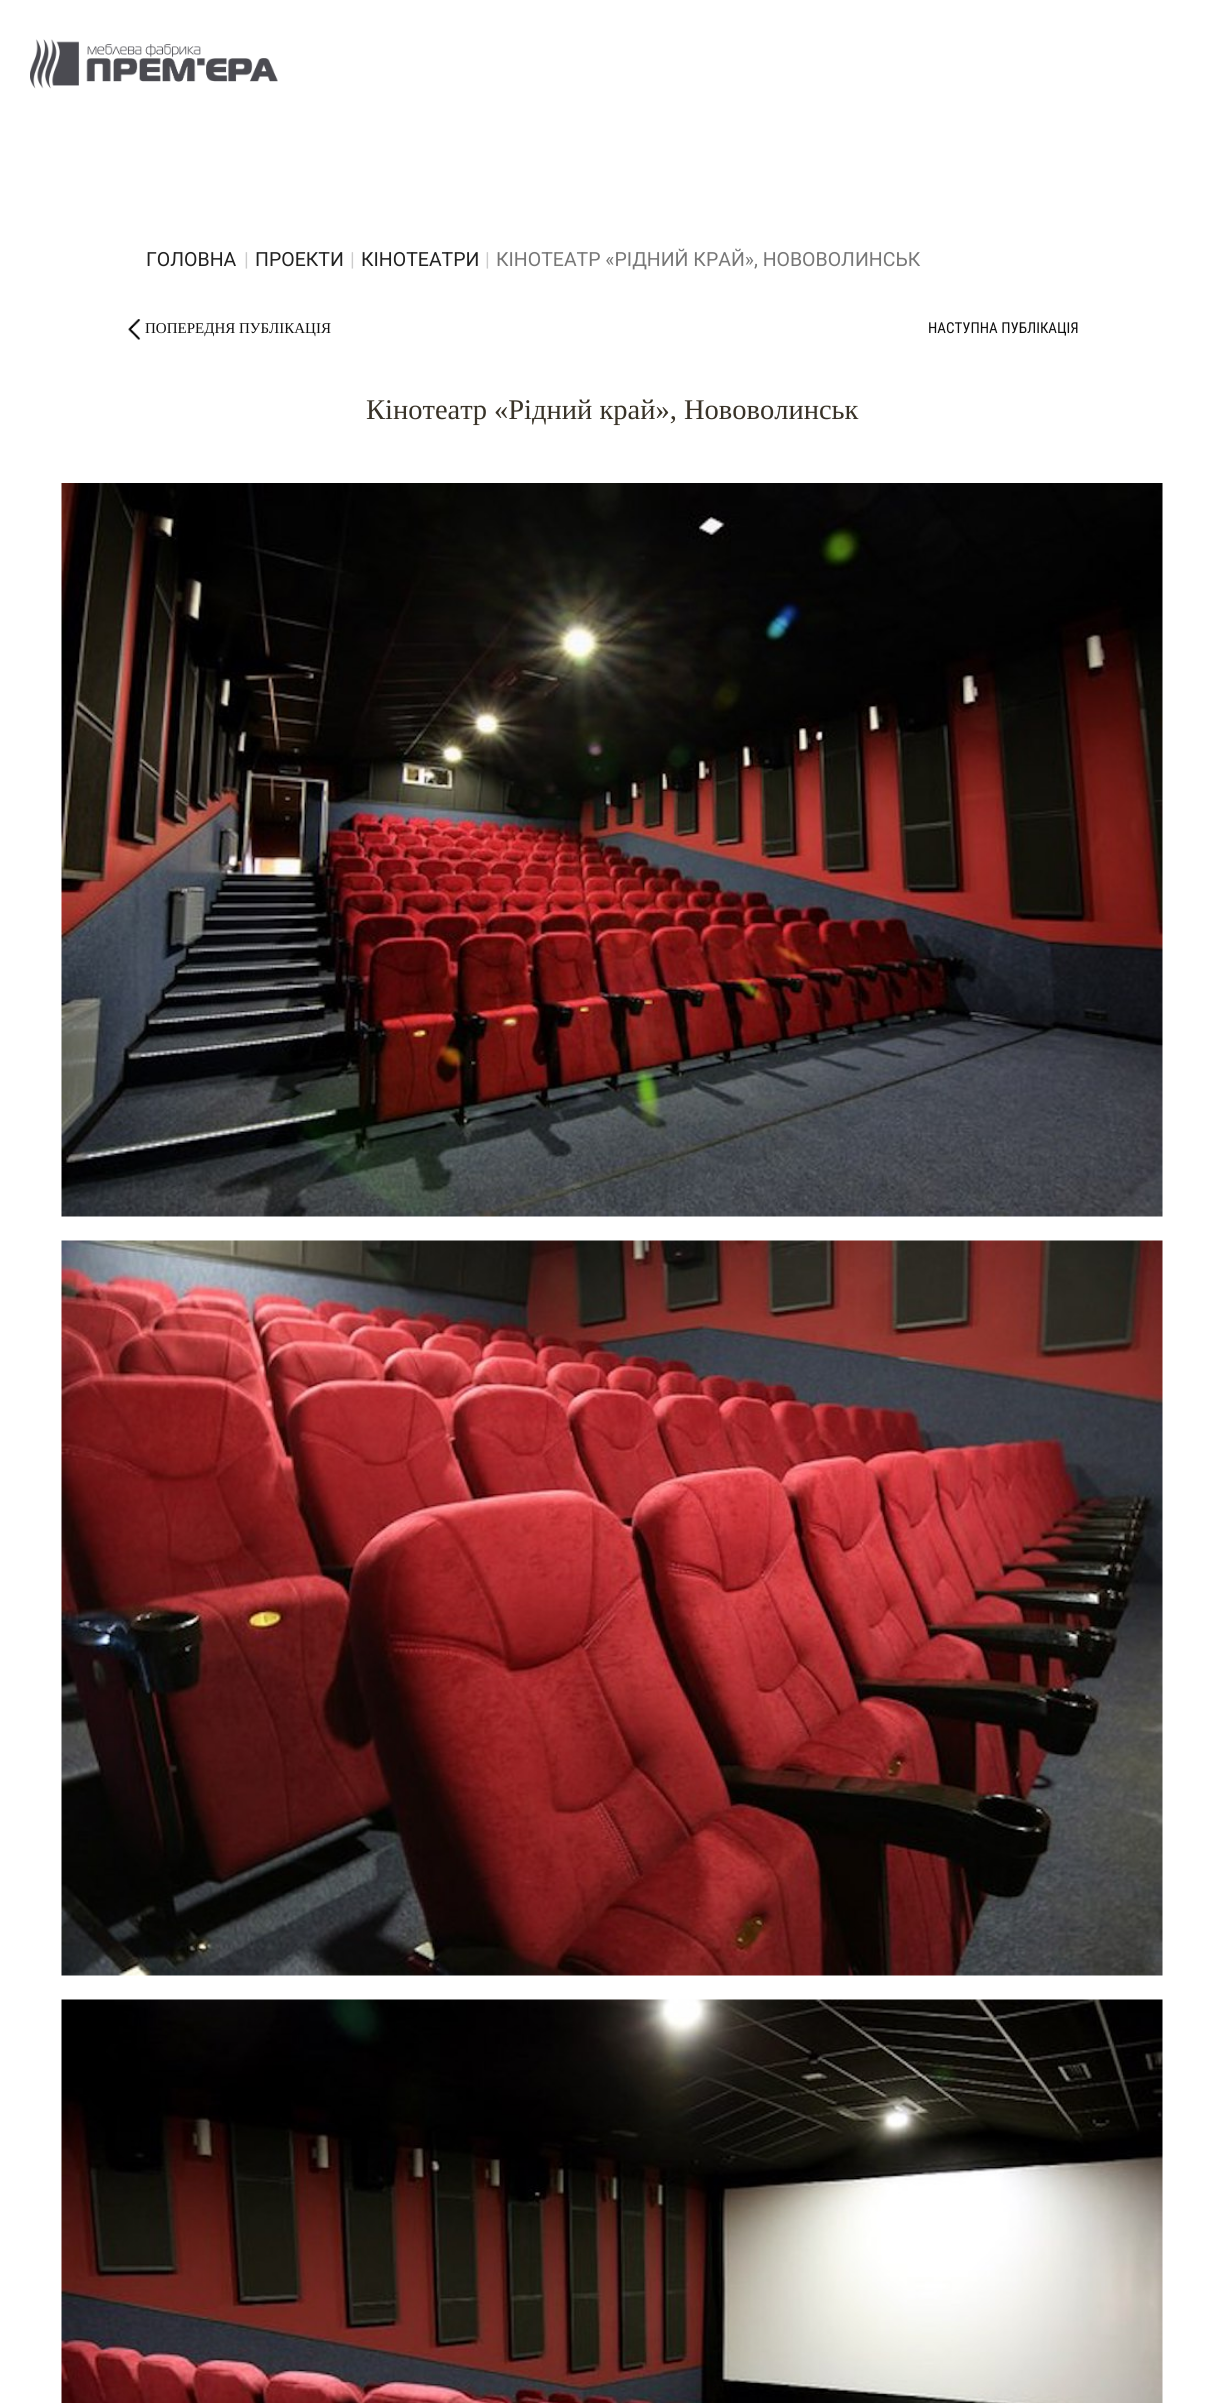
#include <cairo.h>
#include <math.h>
#include <stddef.h>


static void ink(cairo_t *ctx, unsigned color) {
    cairo_set_source_rgb(ctx, (color >> 16) / 255.0, (color >> 8 & 255) / 255.0, (color & 255) / 255.0);
}

static void paste(cairo_t *ctx, const char *path, double x, double y, double w, double h) {
    cairo_surface_t *image = cairo_image_surface_create_from_png(path);
    cairo_save(ctx);
    cairo_set_source_surface(ctx, image, x, y);
    cairo_rectangle(ctx, x, y, w, h);
    cairo_fill(ctx);
    cairo_restore(ctx);
    cairo_surface_destroy(image);
}

int main(void) {
    cairo_surface_t *surface = cairo_image_surface_create(CAIRO_FORMAT_RGB24, 1223, 2403);
    cairo_t *ctx = cairo_create(surface);
    cairo_font_options_t *options = cairo_font_options_create();
    cairo_font_options_set_hint_metrics(options, CAIRO_HINT_METRICS_OFF);
    cairo_font_options_set_hint_style(options, CAIRO_HINT_STYLE_NONE);
    cairo_set_font_options(ctx, options);
    cairo_set_miter_limit(ctx, 4);
    ink(ctx, 0xFFFFFF);
    cairo_paint(ctx);
    paste(ctx, "media/1.png", 30, 39, 248, 50);
    cairo_select_font_face(ctx, "Roboto", CAIRO_FONT_SLANT_NORMAL, CAIRO_FONT_WEIGHT_NORMAL);
    cairo_set_font_size(ctx, 19.5);
    ink(ctx, 0x222222);
    cairo_move_to(ctx, 146, 266);
    cairo_show_text(ctx, "ГОЛОВНА");
    ink(ctx, 0xCCCCCC);
    cairo_move_to(ctx, 244, 266);
    cairo_show_text(ctx, "|");
    ink(ctx, 0x222222);
    cairo_move_to(ctx, 255, 266);
    cairo_show_text(ctx, "ПРОЕКТИ");
    ink(ctx, 0xCCCCCC);
    cairo_move_to(ctx, 350, 266);
    cairo_show_text(ctx, "|");
    ink(ctx, 0x222222);
    cairo_move_to(ctx, 361, 266);
    cairo_show_text(ctx, "КІНОТЕАТРИ");
    ink(ctx, 0xCCCCCC);
    cairo_move_to(ctx, 485, 266);
    cairo_show_text(ctx, "|");
    ink(ctx, 0x777777);
    cairo_move_to(ctx, 496, 266);
    cairo_show_text(ctx, "КІНОТЕАТР «РІДНИЙ КРАЙ», НОВОВОЛИНСЬК");
    paste(ctx, "media/2.png", 128, 319, 13, 21);
    cairo_select_font_face(ctx, "Liberation Serif", CAIRO_FONT_SLANT_NORMAL, CAIRO_FONT_WEIGHT_NORMAL);
    cairo_set_font_size(ctx, 15);
    ink(ctx, 0x111111);
    cairo_move_to(ctx, 145, 333);
    cairo_show_text(ctx, "ПОПЕРЕДНЯ ПУБЛІКАЦІЯ");
    cairo_select_font_face(ctx, "Roboto Condensed", CAIRO_FONT_SLANT_NORMAL, CAIRO_FONT_WEIGHT_NORMAL);
    cairo_move_to(ctx, 928, 333);
    cairo_show_text(ctx, "НАСТУПНА ПУБЛІКАЦІЯ");
    cairo_select_font_face(ctx, "Liberation Serif", CAIRO_FONT_SLANT_NORMAL, CAIRO_FONT_WEIGHT_NORMAL);
    cairo_set_font_size(ctx, 28.5);
    ink(ctx, 0x393328);
    cairo_move_to(ctx, 366, 419);
    cairo_show_text(ctx, "Кінотеатр «Рідний край», Нововолинськ");
    paste(ctx, "media/3.png", 61, 483, 1102, 734);
    paste(ctx, "media/4.png", 61, 1240, 1102, 736);
    paste(ctx, "media/5.png", 61, 1999, 1102, 404);
    cairo_surface_write_to_png(surface, "image.png");
    cairo_font_options_destroy(options);
    cairo_destroy(ctx);
    cairo_surface_destroy(surface);
    return 0;
}
